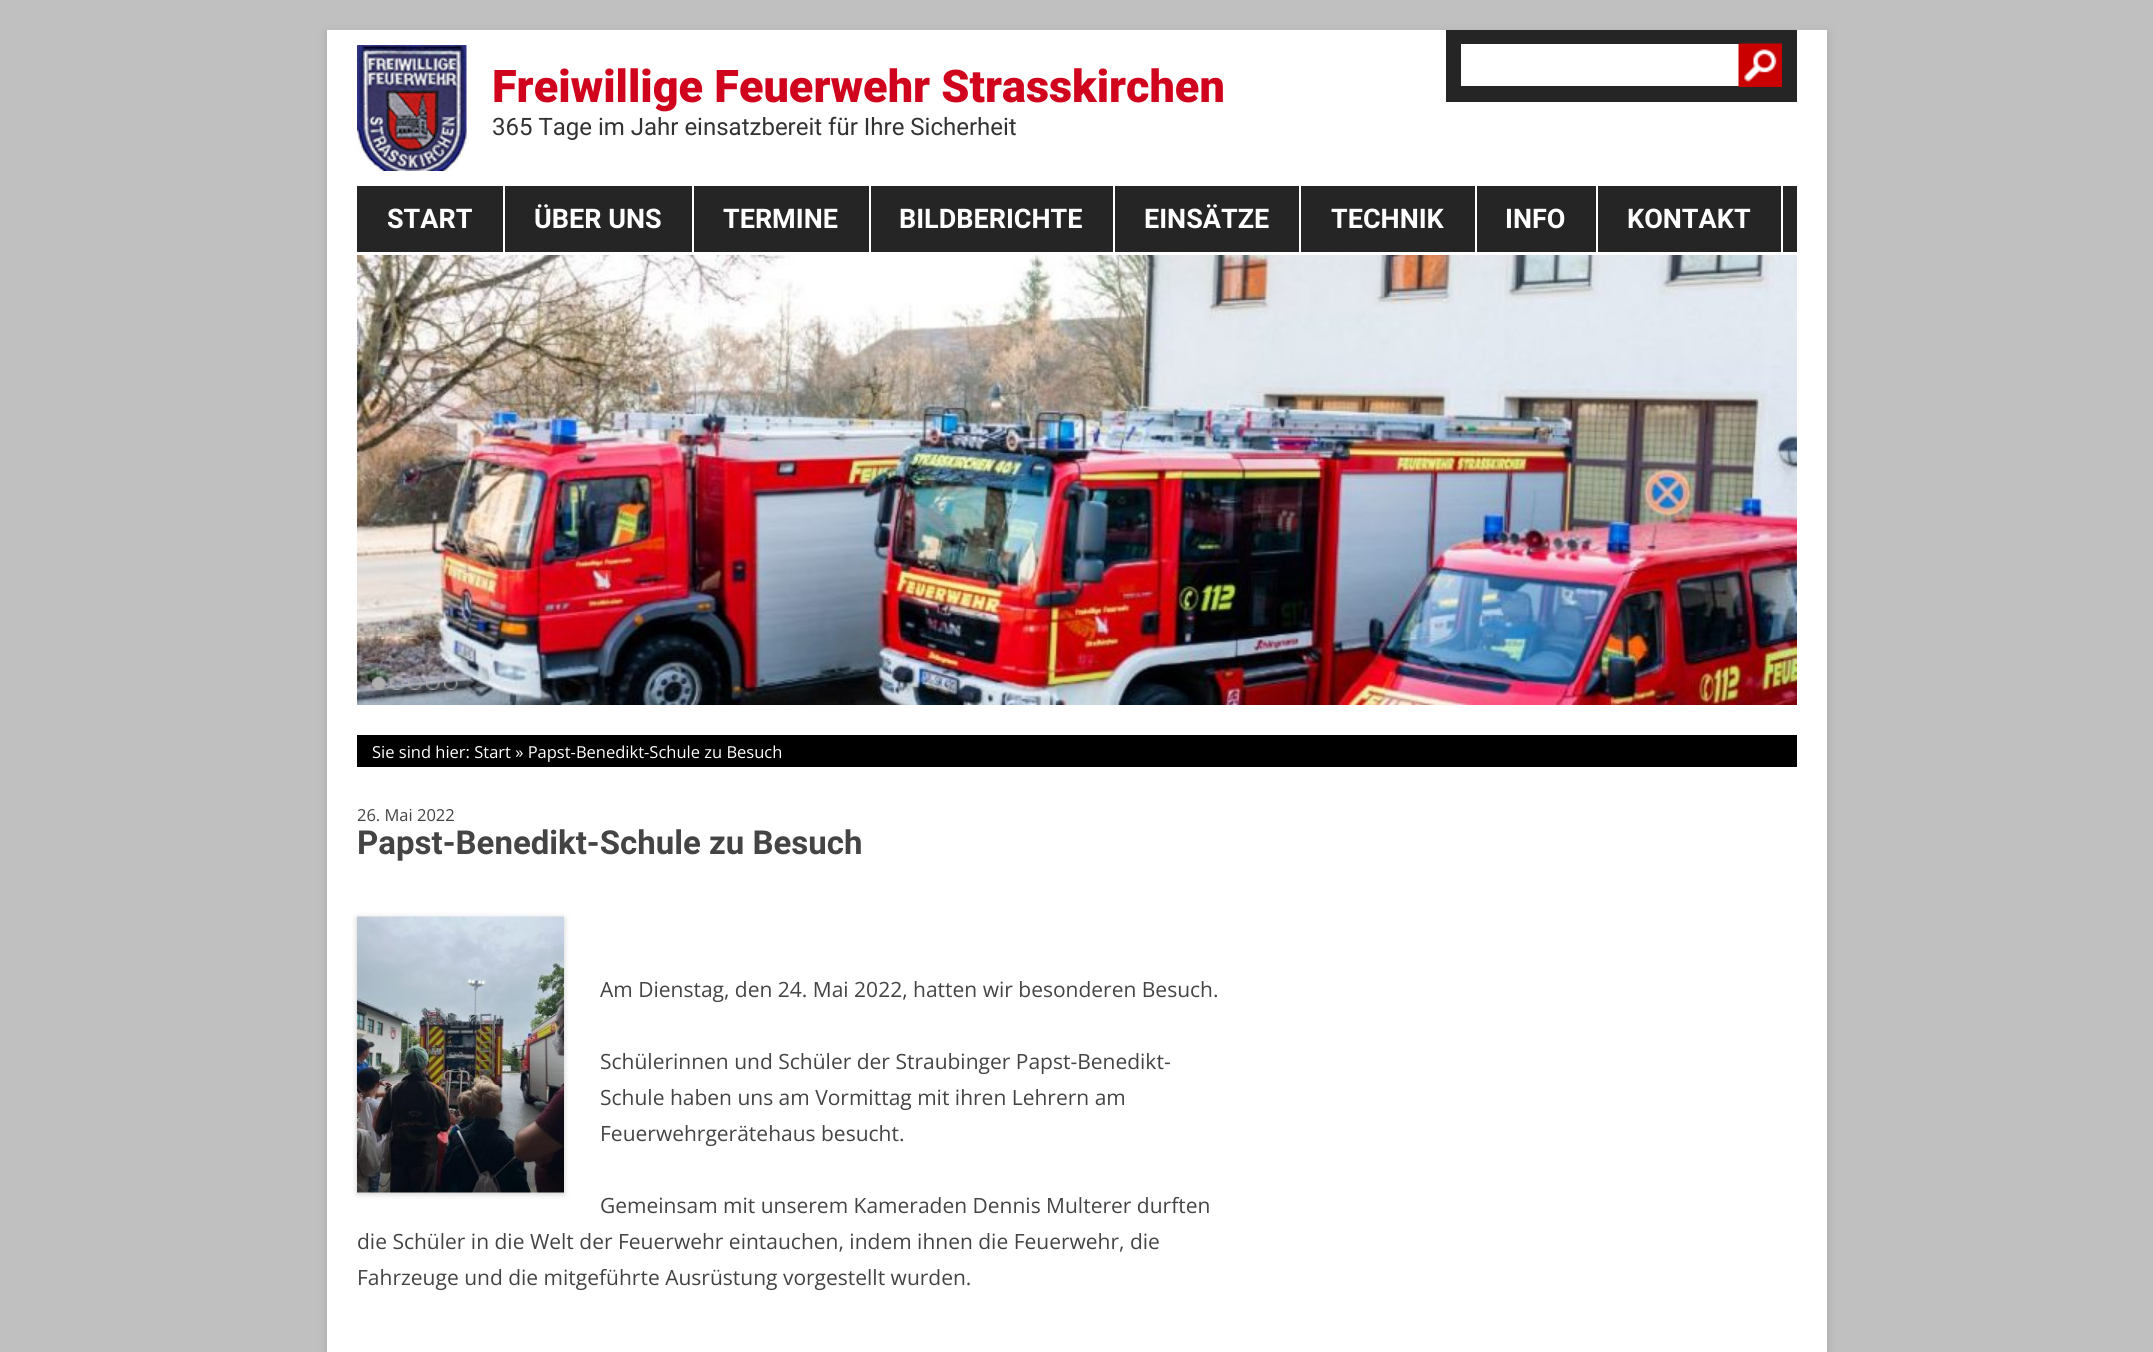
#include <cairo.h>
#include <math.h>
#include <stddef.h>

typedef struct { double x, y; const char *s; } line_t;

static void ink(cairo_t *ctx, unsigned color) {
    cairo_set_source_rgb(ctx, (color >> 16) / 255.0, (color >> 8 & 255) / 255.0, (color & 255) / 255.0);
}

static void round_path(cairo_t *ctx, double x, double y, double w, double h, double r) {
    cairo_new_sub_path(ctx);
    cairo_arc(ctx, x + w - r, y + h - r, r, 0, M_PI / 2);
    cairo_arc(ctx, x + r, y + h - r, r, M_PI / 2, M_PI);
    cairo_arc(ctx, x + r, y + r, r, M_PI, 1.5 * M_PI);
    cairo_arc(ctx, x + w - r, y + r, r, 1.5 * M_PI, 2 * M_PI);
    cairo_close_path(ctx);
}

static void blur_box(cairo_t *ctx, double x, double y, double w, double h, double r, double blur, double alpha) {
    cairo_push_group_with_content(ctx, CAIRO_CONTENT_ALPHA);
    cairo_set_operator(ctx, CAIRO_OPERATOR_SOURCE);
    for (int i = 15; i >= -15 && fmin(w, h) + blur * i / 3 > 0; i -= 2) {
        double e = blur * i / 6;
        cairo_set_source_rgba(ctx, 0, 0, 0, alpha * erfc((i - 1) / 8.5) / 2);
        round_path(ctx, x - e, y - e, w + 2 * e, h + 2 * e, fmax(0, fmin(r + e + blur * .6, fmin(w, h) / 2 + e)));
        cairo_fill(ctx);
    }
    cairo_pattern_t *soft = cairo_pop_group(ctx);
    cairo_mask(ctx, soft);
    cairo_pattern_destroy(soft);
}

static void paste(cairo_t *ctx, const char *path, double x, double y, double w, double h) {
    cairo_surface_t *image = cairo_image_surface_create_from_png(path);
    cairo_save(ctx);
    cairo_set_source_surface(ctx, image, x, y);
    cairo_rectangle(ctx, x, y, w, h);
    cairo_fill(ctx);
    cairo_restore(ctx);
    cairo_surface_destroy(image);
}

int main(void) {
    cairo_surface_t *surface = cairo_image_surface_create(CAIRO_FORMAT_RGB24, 2153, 1352);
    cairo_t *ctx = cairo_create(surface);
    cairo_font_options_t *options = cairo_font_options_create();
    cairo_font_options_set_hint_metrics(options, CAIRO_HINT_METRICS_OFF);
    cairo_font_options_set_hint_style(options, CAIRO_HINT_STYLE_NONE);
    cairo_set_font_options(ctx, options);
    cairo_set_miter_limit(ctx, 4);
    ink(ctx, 0xC0C0C0);
    cairo_paint(ctx);
    ink(ctx, 0x646464);
    blur_box(ctx, 327, 33, 1500, 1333, 0, 4.5, 0.3);
    ink(ctx, 0xFFFFFF);
    cairo_rectangle(ctx, 327, 30, 1500, 1322);
    cairo_fill(ctx);
    paste(ctx, "media/1.png", 357, 45, 110, 126);
    cairo_select_font_face(ctx, "Roboto Black", CAIRO_FONT_SLANT_NORMAL, CAIRO_FONT_WEIGHT_NORMAL);
    cairo_set_font_size(ctx, 45);
    ink(ctx, 0xD0041C);
    cairo_move_to(ctx, 492, 102);
    cairo_show_text(ctx, "Freiwillige Feuerwehr Strasskirchen");
    cairo_select_font_face(ctx, "Roboto", CAIRO_FONT_SLANT_NORMAL, CAIRO_FONT_WEIGHT_NORMAL);
    cairo_set_font_size(ctx, 24);
    ink(ctx, 0x333333);
    cairo_move_to(ctx, 492, 135);
    cairo_show_text(ctx, "365 Tage im Jahr einsatzbereit für Ihre Sicherheit");
    ink(ctx, 0x252525);
    cairo_rectangle(ctx, 1446, 30, 351, 72);
    cairo_fill(ctx);
    ink(ctx, 0xFFFFFF);
    cairo_rectangle(ctx, 1461, 44, 278, 42);
    cairo_fill(ctx);
    paste(ctx, "media/2.png", 1738, 43, 44, 44);
    ink(ctx, 0x252525);
    cairo_rectangle(ctx, 357, 186, 1440, 66);
    cairo_fill(ctx);
    ink(ctx, 0xFFFFFF);
    cairo_rectangle(ctx, 503, 186, 2, 66);
    cairo_fill(ctx);
    cairo_select_font_face(ctx, "Roboto", CAIRO_FONT_SLANT_NORMAL, CAIRO_FONT_WEIGHT_BOLD);
    cairo_set_font_size(ctx, 27);
    cairo_move_to(ctx, 387, 228);
    cairo_show_text(ctx, "START");
    cairo_rectangle(ctx, 692, 186, 2, 66);
    cairo_fill(ctx);
    cairo_move_to(ctx, 534, 228);
    cairo_show_text(ctx, "ÜBER UNS");
    cairo_rectangle(ctx, 869, 186, 2, 66);
    cairo_fill(ctx);
    cairo_move_to(ctx, 723, 228);
    cairo_show_text(ctx, "TERMINE");
    cairo_rectangle(ctx, 1113, 186, 2, 66);
    cairo_fill(ctx);
    cairo_move_to(ctx, 899, 228);
    cairo_show_text(ctx, "BILDBERICHTE");
    cairo_rectangle(ctx, 1299, 186, 2, 66);
    cairo_fill(ctx);
    cairo_move_to(ctx, 1144, 228);
    cairo_show_text(ctx, "EINSÄTZE");
    cairo_rectangle(ctx, 1475, 186, 2, 66);
    cairo_fill(ctx);
    cairo_move_to(ctx, 1331, 228);
    cairo_show_text(ctx, "TECHNIK");
    cairo_rectangle(ctx, 1596, 186, 2, 66);
    cairo_fill(ctx);
    cairo_move_to(ctx, 1505, 228);
    cairo_show_text(ctx, "INFO");
    cairo_rectangle(ctx, 1781, 186, 2, 66);
    cairo_fill(ctx);
    cairo_move_to(ctx, 1627, 228);
    cairo_show_text(ctx, "KONTAKT");
    paste(ctx, "media/3.png", 357, 255, 1440, 450);
    paste(ctx, "media/4.png", 372, 676, 14, 14);
    paste(ctx, "media/5.png", 390, 676, 14, 14);
    paste(ctx, "media/6.png", 408, 676, 14, 14);
    paste(ctx, "media/7.png", 426, 676, 14, 14);
    paste(ctx, "media/8.png", 444, 676, 14, 14);
    ink(ctx, 0x000000);
    cairo_rectangle(ctx, 357, 735, 1440, 32);
    cairo_fill(ctx);
    cairo_select_font_face(ctx, "Open Sans", CAIRO_FONT_SLANT_NORMAL, CAIRO_FONT_WEIGHT_NORMAL);
    cairo_set_font_size(ctx, 16.5);
    ink(ctx, 0xFFFFFF);
    cairo_move_to(ctx, 372, 758);
    cairo_show_text(ctx, "Sie sind hier: Start » Papst-Benedikt-Schule zu Besuch");
    ink(ctx, 0x444444);
    cairo_move_to(ctx, 357, 821);
    cairo_show_text(ctx, "26. Mai 2022");
    cairo_select_font_face(ctx, "Roboto", CAIRO_FONT_SLANT_NORMAL, CAIRO_FONT_WEIGHT_BOLD);
    cairo_set_font_size(ctx, 33);
    cairo_move_to(ctx, 357, 854);
    cairo_show_text(ctx, "Papst-Benedikt-Schule zu Besuch");
    ink(ctx, 0x000000);
    blur_box(ctx, 357, 918, 207, 276, 0, 3, 0.2);
    paste(ctx, "media/9.png", 357, 916, 207, 277);
    cairo_select_font_face(ctx, "Open Sans", CAIRO_FONT_SLANT_NORMAL, CAIRO_FONT_WEIGHT_NORMAL);
    cairo_set_font_size(ctx, 21);
    ink(ctx, 0x444444);
    {
        static const line_t items[] = {
            {600, 997, "Am Dienstag, den 24. Mai 2022, hatten wir besonderen Besuch."},
            {600, 1069, "Schülerinnen und Schüler der Straubinger Papst-Benedikt-"},
            {600, 1105, "Schule haben uns am Vormittag mit ihren Lehrern am"},
            {600, 1141, "Feuerwehrgerätehaus besucht."},
            {600, 1213, "Gemeinsam mit unserem Kameraden Dennis Multerer durften"},
            {357, 1249, "die Schüler in die Welt der Feuerwehr eintauchen, indem ihnen die Feuerwehr, die"},
            {357, 1285, "Fahrzeuge und die mitgeführte Ausrüstung vorgestellt wurden."},
        };
        for (size_t i = 0; i < sizeof items / sizeof *items; i++) {
            cairo_move_to(ctx, items[i].x, items[i].y);
            cairo_show_text(ctx, items[i].s);
        }
    }
    cairo_surface_write_to_png(surface, "image.png");
    cairo_font_options_destroy(options);
    cairo_destroy(ctx);
    cairo_surface_destroy(surface);
    return 0;
}
